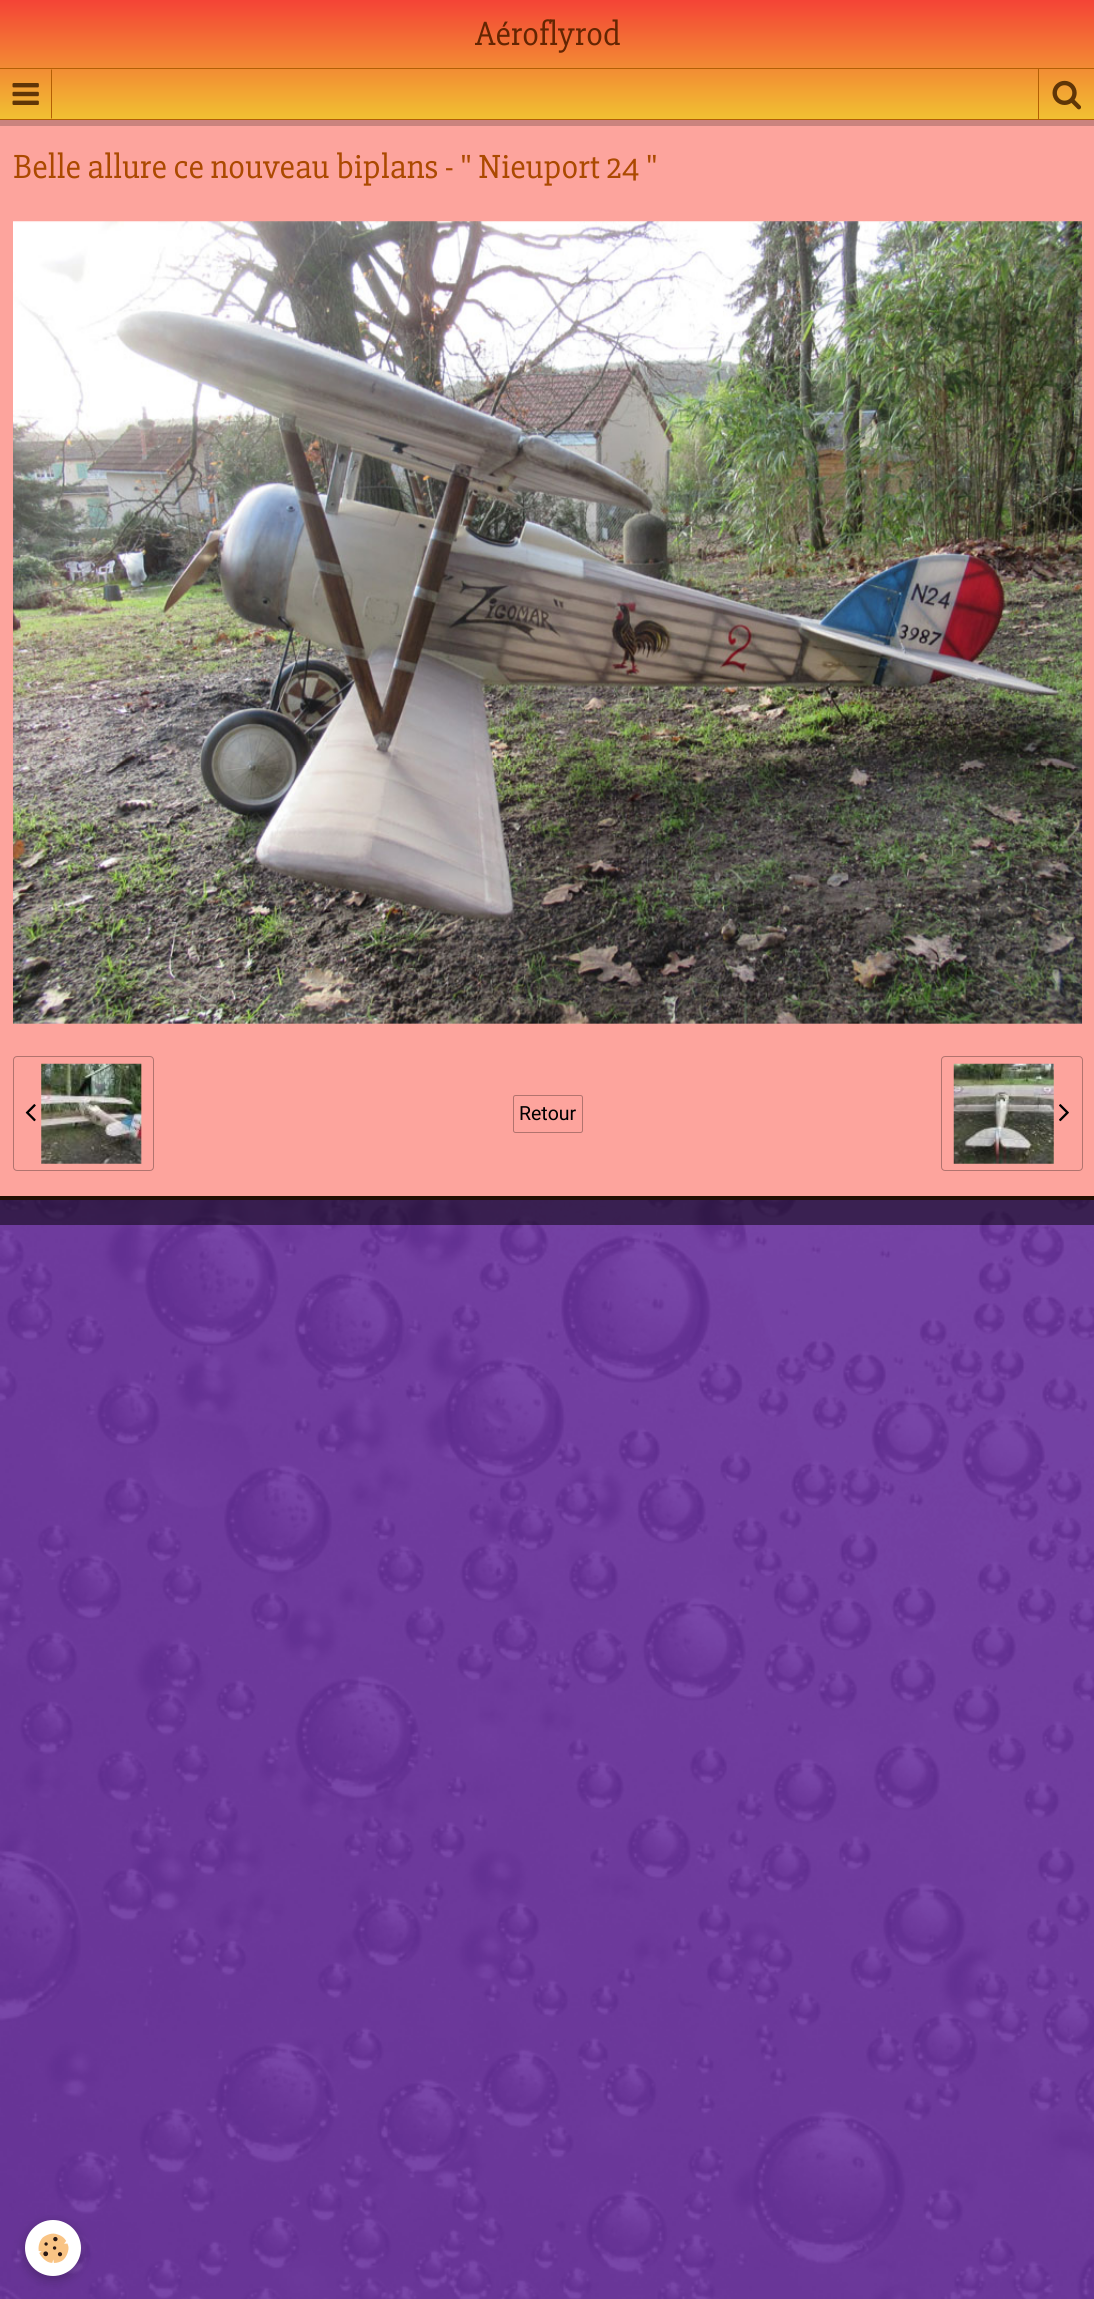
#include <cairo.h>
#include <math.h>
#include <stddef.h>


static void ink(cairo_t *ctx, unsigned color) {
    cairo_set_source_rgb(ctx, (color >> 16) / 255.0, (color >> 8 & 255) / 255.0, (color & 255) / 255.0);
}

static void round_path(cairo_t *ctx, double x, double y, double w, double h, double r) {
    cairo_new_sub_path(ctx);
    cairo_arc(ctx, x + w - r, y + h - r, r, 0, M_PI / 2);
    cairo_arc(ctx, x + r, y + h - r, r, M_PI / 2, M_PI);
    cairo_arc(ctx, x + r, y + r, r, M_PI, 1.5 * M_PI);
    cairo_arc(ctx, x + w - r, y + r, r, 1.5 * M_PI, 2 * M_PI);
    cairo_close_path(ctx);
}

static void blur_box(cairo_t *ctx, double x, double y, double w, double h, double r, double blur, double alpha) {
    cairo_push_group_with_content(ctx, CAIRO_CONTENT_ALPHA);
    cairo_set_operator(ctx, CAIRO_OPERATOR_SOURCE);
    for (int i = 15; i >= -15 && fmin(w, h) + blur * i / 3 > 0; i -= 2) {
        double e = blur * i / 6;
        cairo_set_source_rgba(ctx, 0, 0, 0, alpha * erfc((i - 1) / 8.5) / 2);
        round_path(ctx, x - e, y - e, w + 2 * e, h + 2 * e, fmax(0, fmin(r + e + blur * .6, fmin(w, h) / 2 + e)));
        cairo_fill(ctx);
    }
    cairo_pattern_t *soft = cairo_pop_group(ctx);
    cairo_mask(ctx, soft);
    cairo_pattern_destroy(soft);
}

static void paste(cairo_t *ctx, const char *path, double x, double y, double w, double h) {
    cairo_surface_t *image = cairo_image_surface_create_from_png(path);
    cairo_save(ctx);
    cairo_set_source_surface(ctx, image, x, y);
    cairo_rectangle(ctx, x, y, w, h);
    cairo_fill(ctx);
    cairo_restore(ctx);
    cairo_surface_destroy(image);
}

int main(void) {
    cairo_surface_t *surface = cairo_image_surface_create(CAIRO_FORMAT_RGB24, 1094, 2299);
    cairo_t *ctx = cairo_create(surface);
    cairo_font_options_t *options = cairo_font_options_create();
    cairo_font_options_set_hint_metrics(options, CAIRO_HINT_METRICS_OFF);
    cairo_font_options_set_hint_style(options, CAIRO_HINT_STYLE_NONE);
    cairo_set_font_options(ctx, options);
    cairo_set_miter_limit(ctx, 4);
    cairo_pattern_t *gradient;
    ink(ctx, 0x6A329F);
    cairo_paint(ctx);
    paste(ctx, "media/1.png", 0, 1200, 1094, 1099);
    ink(ctx, 0xCA837E);
    cairo_rectangle(ctx, 0, 120, 1094, 6);
    cairo_fill(ctx);
    gradient = cairo_pattern_create_linear(548, 0, 548, 120);
    cairo_pattern_add_color_stop_rgba(gradient, 0, 0.957, 0.263, 0.212, 1);
    cairo_pattern_add_color_stop_rgba(gradient, 1, 0.945, 0.761, 0.196, 1);
    cairo_set_source(ctx, gradient);
    cairo_pattern_destroy(gradient);
    cairo_rectangle(ctx, 0, 0, 1094, 119);
    cairo_fill(ctx);
    cairo_select_font_face(ctx, "Slabo 27px", CAIRO_FONT_SLANT_NORMAL, CAIRO_FONT_WEIGHT_NORMAL);
    cairo_set_font_size(ctx, 34.5);
    ink(ctx, 0x642502);
    cairo_move_to(ctx, 475, 45);
    cairo_show_text(ctx, "Aéroflyrod");
    ink(ctx, 0xB35F05);
    cairo_rectangle(ctx, 0, 68, 1094, 1);
    cairo_fill(ctx);
    cairo_rectangle(ctx, 0, 119, 1094, 1);
    cairo_fill(ctx);
    cairo_new_path(ctx);
    cairo_move_to(ctx, 52, 69);
    cairo_line_to(ctx, 52, 119);
    cairo_line_to(ctx, 51, 118);
    cairo_line_to(ctx, 51, 70);
    cairo_close_path(ctx);
    cairo_fill(ctx);
    paste(ctx, "media/2.png", 12, 83, 27, 22);
    cairo_rectangle(ctx, 1038, 69, 1, 50);
    cairo_fill(ctx);
    paste(ctx, "media/3.png", 1052, 80, 29, 30);
    ink(ctx, 0xFDA49D);
    cairo_rectangle(ctx, 0, 126, 1094, 1070);
    cairo_fill(ctx);
    cairo_set_font_size(ctx, 34.6);
    ink(ctx, 0xAB4900);
    cairo_move_to(ctx, 13, 178);
    cairo_show_text(ctx, "Belle allure ce nouveau biplans - \" Nieuport 24 \"");
    paste(ctx, "media/4.png", 13, 221, 1069, 803);
    paste(ctx, "media/5.png", 25, 1104, 11, 18);
    paste(ctx, "media/6.png", 41, 1063, 101, 101);
    round_path(ctx, 13.5, 1056.5, 140, 114, 3.5);
    ink(ctx, 0xB1736E);
    cairo_set_line_width(ctx, 1);
    cairo_stroke(ctx);
    round_path(ctx, 513.5, 1095.5, 69, 37, 2);
    cairo_stroke(ctx);
    cairo_select_font_face(ctx, "Roboto", CAIRO_FONT_SLANT_NORMAL, CAIRO_FONT_WEIGHT_NORMAL);
    cairo_set_font_size(ctx, 19.5);
    ink(ctx, 0x000000);
    cairo_move_to(ctx, 519, 1120);
    cairo_show_text(ctx, "Retour");
    paste(ctx, "media/7.png", 953, 1063, 101, 101);
    paste(ctx, "media/8.png", 1059, 1104, 10, 18);
    round_path(ctx, 941.5, 1056.5, 141, 114, 3.5);
    ink(ctx, 0xB1736E);
    cairo_stroke(ctx);
    cairo_set_source_rgba(ctx, 0, 0, 0, 0.5);
    cairo_rectangle(ctx, 0, 1200, 1094, 25);
    cairo_fill(ctx);
    ink(ctx, 0x230F03);
    cairo_rectangle(ctx, 0, 1196, 1094, 4);
    cairo_fill(ctx);
    ink(ctx, 0x000000);
    blur_box(ctx, 25, 2224, 56, 56, 28, 6, 0.24);
    ink(ctx, 0xFFFFFF);
    cairo_arc(ctx, 53, 2248, 28, 0, 2 * M_PI);
    cairo_fill(ctx);
    paste(ctx, "media/9.png", 38, 2233, 31, 30);
    cairo_surface_write_to_png(surface, "image.png");
    cairo_font_options_destroy(options);
    cairo_destroy(ctx);
    cairo_surface_destroy(surface);
    return 0;
}
